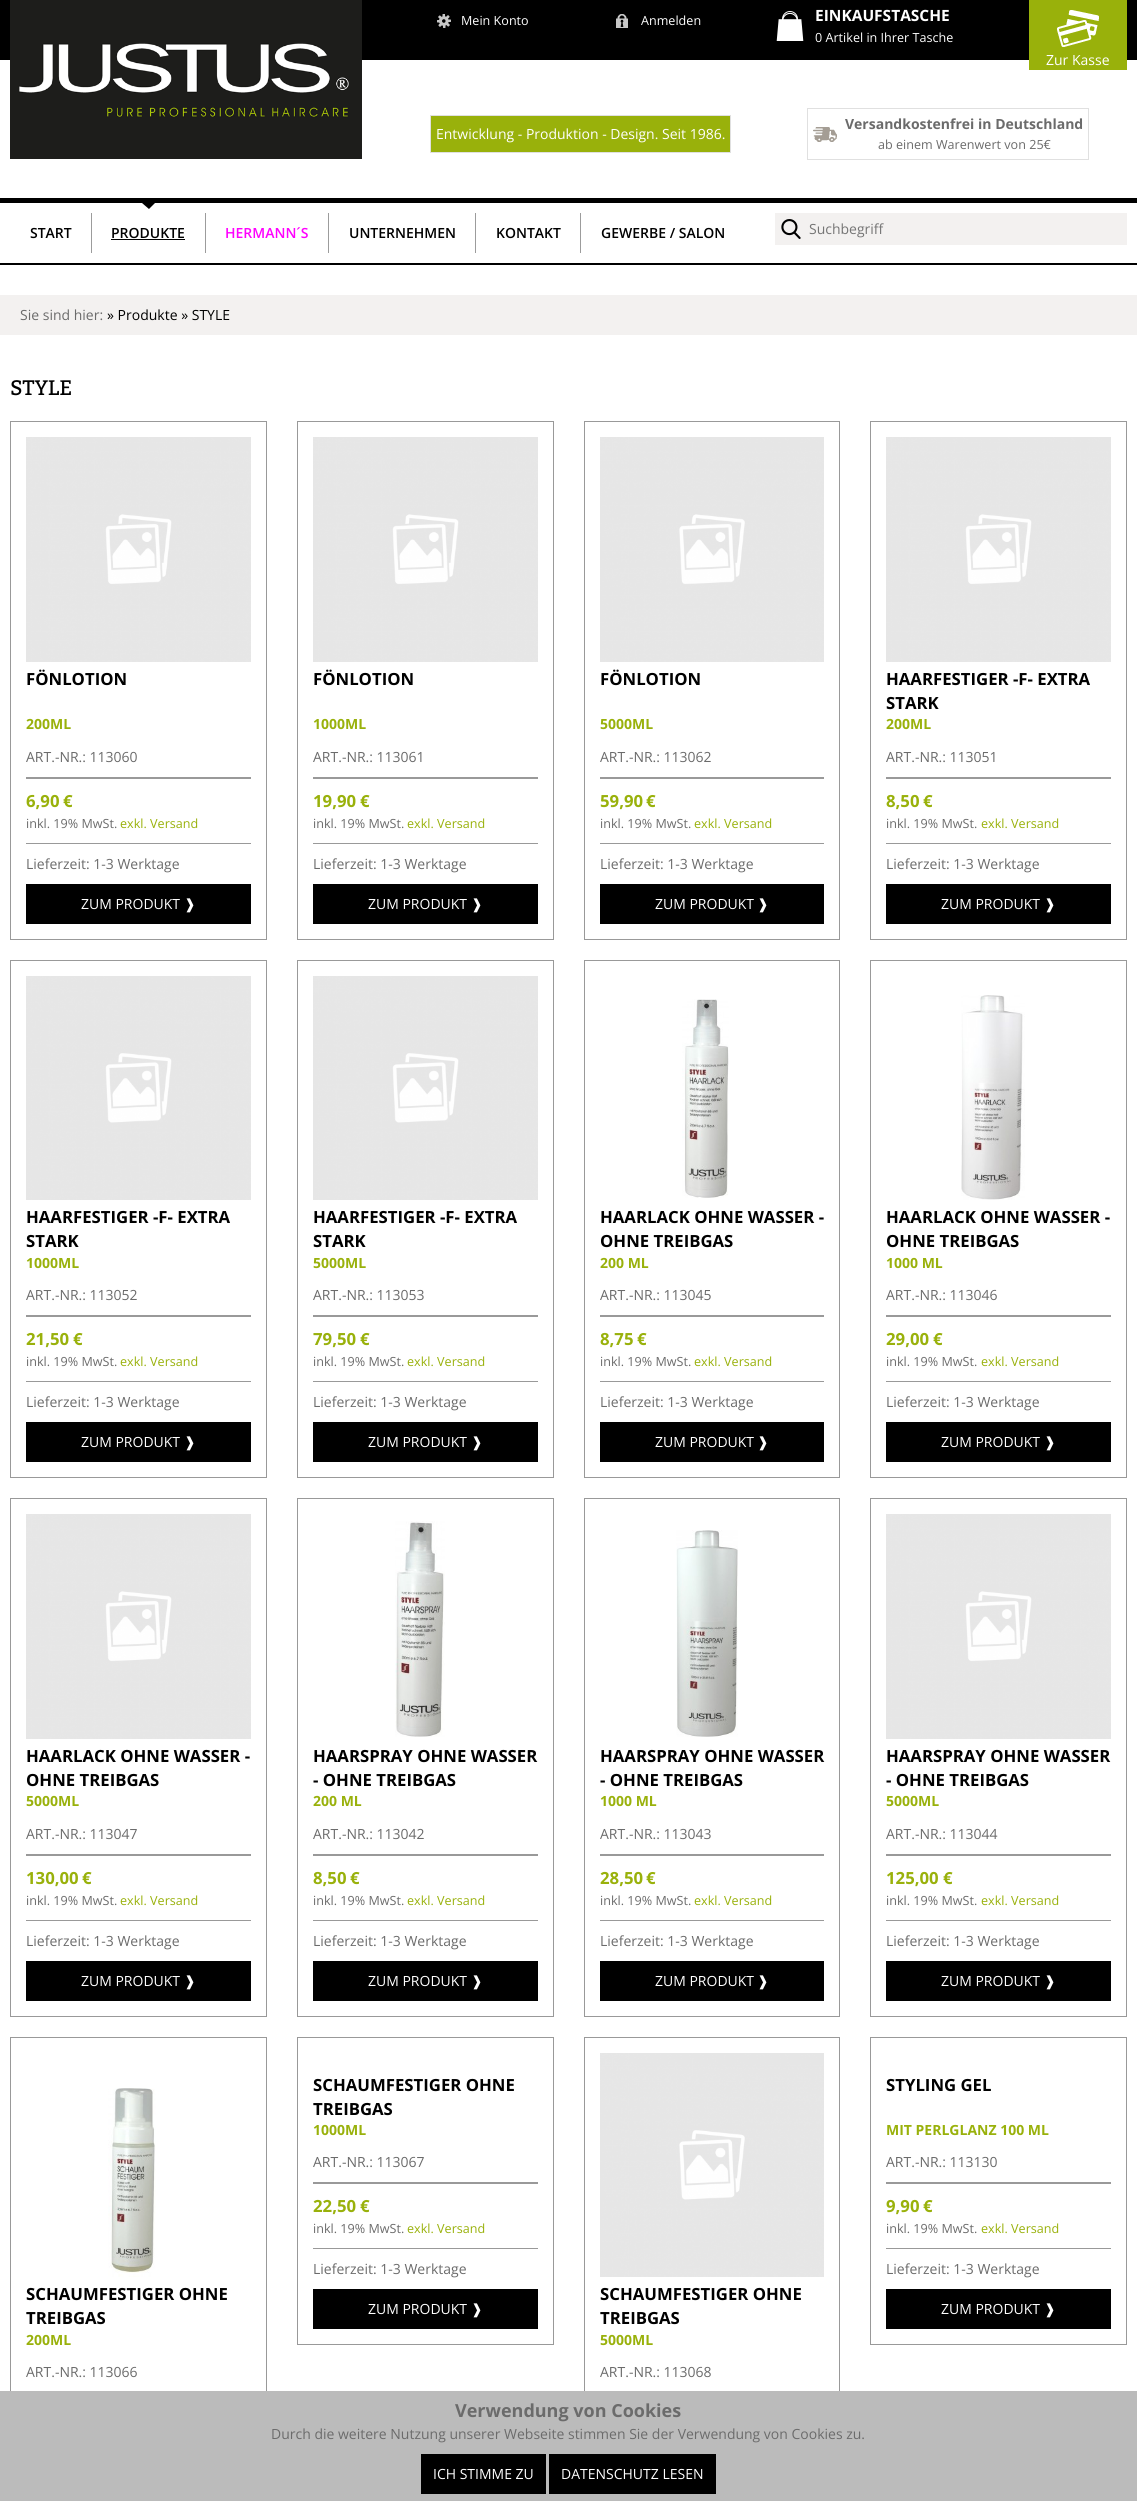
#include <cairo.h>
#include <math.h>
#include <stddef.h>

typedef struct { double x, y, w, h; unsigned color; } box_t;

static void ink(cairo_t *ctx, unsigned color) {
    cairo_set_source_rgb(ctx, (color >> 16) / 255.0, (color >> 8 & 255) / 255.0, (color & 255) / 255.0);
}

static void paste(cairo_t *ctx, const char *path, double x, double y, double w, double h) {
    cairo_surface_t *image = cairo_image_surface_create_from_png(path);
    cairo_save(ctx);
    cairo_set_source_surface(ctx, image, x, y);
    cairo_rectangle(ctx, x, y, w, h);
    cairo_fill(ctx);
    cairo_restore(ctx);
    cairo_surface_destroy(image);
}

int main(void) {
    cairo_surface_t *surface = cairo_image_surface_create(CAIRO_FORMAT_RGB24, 1137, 2501);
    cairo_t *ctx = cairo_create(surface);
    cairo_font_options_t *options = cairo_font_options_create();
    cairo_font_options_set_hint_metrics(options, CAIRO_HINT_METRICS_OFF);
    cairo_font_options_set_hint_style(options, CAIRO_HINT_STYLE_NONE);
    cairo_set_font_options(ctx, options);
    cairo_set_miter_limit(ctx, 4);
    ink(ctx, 0xFFFFFF);
    cairo_paint(ctx);
    ink(ctx, 0x000000);
    cairo_rectangle(ctx, 0, 0, 1137, 60);
    cairo_fill(ctx);
    paste(ctx, "media/1.png", 437, 14, 14, 14);
    cairo_select_font_face(ctx, "Open Sans", CAIRO_FONT_SLANT_NORMAL, CAIRO_FONT_WEIGHT_NORMAL);
    cairo_set_font_size(ctx, 12.6);
    ink(ctx, 0xFFFFFF);
    cairo_move_to(ctx, 461, 25);
    cairo_show_text(ctx, "Mein Konto");
    paste(ctx, "media/2.png", 616, 14, 12, 14);
    cairo_move_to(ctx, 641, 25);
    cairo_show_text(ctx, "Anmelden");
    paste(ctx, "media/3.png", 776, 11, 28, 30);
    cairo_select_font_face(ctx, "Open Sans", CAIRO_FONT_SLANT_NORMAL, CAIRO_FONT_WEIGHT_BOLD);
    cairo_set_font_size(ctx, 15.5);
    cairo_move_to(ctx, 815, 21);
    cairo_show_text(ctx, "EINKAUFSTASCHE");
    cairo_select_font_face(ctx, "Open Sans", CAIRO_FONT_SLANT_NORMAL, CAIRO_FONT_WEIGHT_NORMAL);
    cairo_set_font_size(ctx, 12.6);
    cairo_move_to(ctx, 815, 42);
    cairo_show_text(ctx, "0 Artikel in Ihrer Tasche");
    ink(ctx, 0x99B10B);
    cairo_rectangle(ctx, 1029, 0, 98, 70);
    cairo_fill(ctx);
    paste(ctx, "media/4.png", 1057, 10, 42, 37);
    cairo_set_font_size(ctx, 14);
    ink(ctx, 0xFFFFFF);
    cairo_move_to(ctx, 1046, 65);
    cairo_show_text(ctx, "Zur Kasse");
    paste(ctx, "media/5.png", 10, 0, 352, 159);
    ink(ctx, 0x99B10B);
    cairo_rectangle(ctx, 430.5, 115.5, 300, 37);
    cairo_fill_preserve(ctx);
    ink(ctx, 0xE0E0E0);
    cairo_set_line_width(ctx, 1);
    cairo_stroke(ctx);
    ink(ctx, 0xFFFFFF);
    cairo_move_to(ctx, 436, 139);
    cairo_show_text(ctx, "Entwicklung - Produktion - Design. Seit 1986.");
    cairo_rectangle(ctx, 807.5, 108.5, 281, 51);
    ink(ctx, 0xE0E0E0);
    cairo_stroke(ctx);
    paste(ctx, "media/6.png", 813, 127, 24, 15);
    cairo_select_font_face(ctx, "Open Sans", CAIRO_FONT_SLANT_NORMAL, CAIRO_FONT_WEIGHT_BOLD);
    ink(ctx, 0x6B6B6B);
    cairo_move_to(ctx, 845, 129);
    cairo_show_text(ctx, "Versandkostenfrei in Deutschland");
    cairo_select_font_face(ctx, "Open Sans", CAIRO_FONT_SLANT_NORMAL, CAIRO_FONT_WEIGHT_NORMAL);
    cairo_set_font_size(ctx, 12.6);
    cairo_move_to(ctx, 878, 149);
    cairo_show_text(ctx, "ab einem Warenwert von 25€");
    {
        static const box_t items[] = {
            {0, 198, 1137, 5, 0x000000},
            {0, 263, 1137, 2, 0x000000},
            {91, 213, 1, 40, 0x9C9C9C},
        };
        for (size_t i = 0; i < sizeof items / sizeof *items; i++) {
            ink(ctx, items[i].color);
            cairo_rectangle(ctx, items[i].x, items[i].y, items[i].w, items[i].h);
            cairo_fill(ctx);
        }
    }
    cairo_select_font_face(ctx, "Open Sans SemiBold", CAIRO_FONT_SLANT_NORMAL, CAIRO_FONT_WEIGHT_NORMAL);
    cairo_set_font_size(ctx, 14);
    ink(ctx, 0x000000);
    cairo_move_to(ctx, 30, 238);
    cairo_show_text(ctx, "START");
    ink(ctx, 0x9C9C9C);
    cairo_rectangle(ctx, 205, 213, 1, 40);
    cairo_fill(ctx);
    paste(ctx, "media/7.png", 142, 203, 13, 6);
    ink(ctx, 0x000000);
    cairo_move_to(ctx, 111, 238);
    cairo_show_text(ctx, "PRODUKTE");
    cairo_rectangle(ctx, 111, 239, 74, 1);
    cairo_fill(ctx);
    ink(ctx, 0x9C9C9C);
    cairo_rectangle(ctx, 328, 213, 1, 40);
    cairo_fill(ctx);
    ink(ctx, 0xFF00FF);
    cairo_move_to(ctx, 225, 238);
    cairo_show_text(ctx, "HERMANN´S");
    ink(ctx, 0x9C9C9C);
    cairo_rectangle(ctx, 475, 213, 1, 40);
    cairo_fill(ctx);
    ink(ctx, 0x000000);
    cairo_move_to(ctx, 349, 238);
    cairo_show_text(ctx, "UNTERNEHMEN");
    ink(ctx, 0x9C9C9C);
    cairo_rectangle(ctx, 580, 213, 1, 40);
    cairo_fill(ctx);
    ink(ctx, 0x000000);
    cairo_move_to(ctx, 496, 238);
    cairo_show_text(ctx, "KONTAKT");
    cairo_move_to(ctx, 601, 238);
    cairo_show_text(ctx, "GEWERBE / SALON");
    ink(ctx, 0xF3F1F0);
    cairo_rectangle(ctx, 775, 213, 352, 32);
    cairo_fill(ctx);
    paste(ctx, "media/8.png", 781, 219, 20, 20);
    cairo_select_font_face(ctx, "Open Sans", CAIRO_FONT_SLANT_NORMAL, CAIRO_FONT_WEIGHT_NORMAL);
    ink(ctx, 0x757575);
    cairo_move_to(ctx, 809, 234);
    cairo_show_text(ctx, "Suchbegriff");
    ink(ctx, 0xF3F1F0);
    cairo_rectangle(ctx, 0, 295, 1137, 40);
    cairo_fill(ctx);
    ink(ctx, 0x6B6B6B);
    cairo_move_to(ctx, 20, 320);
    cairo_show_text(ctx, "Sie sind hier:");
    ink(ctx, 0x000000);
    cairo_move_to(ctx, 107, 320);
    cairo_show_text(ctx, "» Produkte » STYLE");
    cairo_select_font_face(ctx, "Bitter", CAIRO_FONT_SLANT_NORMAL, CAIRO_FONT_WEIGHT_NORMAL);
    cairo_set_font_size(ctx, 21);
    cairo_move_to(ctx, 10, 395);
    cairo_show_text(ctx, "STYLE");
    cairo_rectangle(ctx, 10.5, 421.5, 256, 518);
    ink(ctx, 0x999999);
    cairo_stroke(ctx);
    paste(ctx, "media/9.png", 26, 437, 225, 225);
    cairo_select_font_face(ctx, "Open Sans", CAIRO_FONT_SLANT_NORMAL, CAIRO_FONT_WEIGHT_BOLD);
    cairo_set_font_size(ctx, 16.75);
    ink(ctx, 0x000000);
    cairo_move_to(ctx, 26, 685);
    cairo_show_text(ctx, "FÖNLOTION");
    cairo_set_font_size(ctx, 14);
    ink(ctx, 0x99B10B);
    cairo_move_to(ctx, 26, 729);
    cairo_show_text(ctx, "200ML");
    cairo_select_font_face(ctx, "Open Sans", CAIRO_FONT_SLANT_NORMAL, CAIRO_FONT_WEIGHT_NORMAL);
    ink(ctx, 0x6B6B6B);
    cairo_move_to(ctx, 26, 762);
    cairo_show_text(ctx, "ART.-NR.: 113060");
    ink(ctx, 0x999999);
    cairo_rectangle(ctx, 26, 777, 225, 2);
    cairo_fill(ctx);
    cairo_rectangle(ctx, 26, 843, 225, 1);
    cairo_fill(ctx);
    cairo_select_font_face(ctx, "Open Sans", CAIRO_FONT_SLANT_NORMAL, CAIRO_FONT_WEIGHT_BOLD);
    cairo_set_font_size(ctx, 16.75);
    ink(ctx, 0x99B10B);
    cairo_move_to(ctx, 26, 807);
    cairo_show_text(ctx, "6,90");
    cairo_move_to(ctx, 63, 807);
    cairo_show_text(ctx, "€");
    cairo_select_font_face(ctx, "Open Sans", CAIRO_FONT_SLANT_NORMAL, CAIRO_FONT_WEIGHT_NORMAL);
    cairo_set_font_size(ctx, 12.6);
    ink(ctx, 0x6B6B6B);
    cairo_move_to(ctx, 26, 828);
    cairo_show_text(ctx, "inkl. 19% MwSt.");
    ink(ctx, 0x99B10B);
    cairo_move_to(ctx, 120, 828);
    cairo_show_text(ctx, "exkl. Versand");
    cairo_set_font_size(ctx, 14);
    ink(ctx, 0x6B6B6B);
    cairo_move_to(ctx, 26, 869);
    cairo_show_text(ctx, "Lieferzeit: 1-3 Werktage");
    ink(ctx, 0x000000);
    cairo_rectangle(ctx, 26, 884, 225, 40);
    cairo_fill(ctx);
    ink(ctx, 0xFFFFFF);
    cairo_move_to(ctx, 81, 909);
    cairo_show_text(ctx, "ZUM PRODUKT");
    cairo_select_font_face(ctx, "DejaVu Sans", CAIRO_FONT_SLANT_NORMAL, CAIRO_FONT_WEIGHT_NORMAL);
    cairo_move_to(ctx, 184, 909);
    cairo_show_text(ctx, "❱");
    cairo_rectangle(ctx, 297.5, 421.5, 256, 518);
    ink(ctx, 0x999999);
    cairo_stroke(ctx);
    paste(ctx, "media/10.png", 313, 437, 225, 225);
    cairo_select_font_face(ctx, "Open Sans", CAIRO_FONT_SLANT_NORMAL, CAIRO_FONT_WEIGHT_BOLD);
    cairo_set_font_size(ctx, 16.75);
    ink(ctx, 0x000000);
    cairo_move_to(ctx, 313, 685);
    cairo_show_text(ctx, "FÖNLOTION");
    cairo_set_font_size(ctx, 14);
    ink(ctx, 0x99B10B);
    cairo_move_to(ctx, 313, 729);
    cairo_show_text(ctx, "1000ML");
    cairo_select_font_face(ctx, "Open Sans", CAIRO_FONT_SLANT_NORMAL, CAIRO_FONT_WEIGHT_NORMAL);
    ink(ctx, 0x6B6B6B);
    cairo_move_to(ctx, 313, 762);
    cairo_show_text(ctx, "ART.-NR.: 113061");
    ink(ctx, 0x999999);
    cairo_rectangle(ctx, 313, 777, 225, 2);
    cairo_fill(ctx);
    cairo_rectangle(ctx, 313, 843, 225, 1);
    cairo_fill(ctx);
    cairo_select_font_face(ctx, "Open Sans", CAIRO_FONT_SLANT_NORMAL, CAIRO_FONT_WEIGHT_BOLD);
    cairo_set_font_size(ctx, 16.75);
    ink(ctx, 0x99B10B);
    cairo_move_to(ctx, 313, 807);
    cairo_show_text(ctx, "19,90");
    cairo_move_to(ctx, 360, 807);
    cairo_show_text(ctx, "€");
    cairo_select_font_face(ctx, "Open Sans", CAIRO_FONT_SLANT_NORMAL, CAIRO_FONT_WEIGHT_NORMAL);
    cairo_set_font_size(ctx, 12.6);
    ink(ctx, 0x6B6B6B);
    cairo_move_to(ctx, 313, 828);
    cairo_show_text(ctx, "inkl. 19% MwSt.");
    ink(ctx, 0x99B10B);
    cairo_move_to(ctx, 407, 828);
    cairo_show_text(ctx, "exkl. Versand");
    cairo_set_font_size(ctx, 14);
    ink(ctx, 0x6B6B6B);
    cairo_move_to(ctx, 313, 869);
    cairo_show_text(ctx, "Lieferzeit: 1-3 Werktage");
    ink(ctx, 0x000000);
    cairo_rectangle(ctx, 313, 884, 225, 40);
    cairo_fill(ctx);
    ink(ctx, 0xFFFFFF);
    cairo_move_to(ctx, 368, 909);
    cairo_show_text(ctx, "ZUM PRODUKT");
    cairo_select_font_face(ctx, "DejaVu Sans", CAIRO_FONT_SLANT_NORMAL, CAIRO_FONT_WEIGHT_NORMAL);
    cairo_move_to(ctx, 471, 909);
    cairo_show_text(ctx, "❱");
    cairo_rectangle(ctx, 584.5, 421.5, 255, 518);
    ink(ctx, 0x999999);
    cairo_stroke(ctx);
    paste(ctx, "media/11.png", 600, 437, 224, 225);
    cairo_select_font_face(ctx, "Open Sans", CAIRO_FONT_SLANT_NORMAL, CAIRO_FONT_WEIGHT_BOLD);
    cairo_set_font_size(ctx, 16.75);
    ink(ctx, 0x000000);
    cairo_move_to(ctx, 600, 685);
    cairo_show_text(ctx, "FÖNLOTION");
    cairo_set_font_size(ctx, 14);
    ink(ctx, 0x99B10B);
    cairo_move_to(ctx, 600, 729);
    cairo_show_text(ctx, "5000ML");
    cairo_select_font_face(ctx, "Open Sans", CAIRO_FONT_SLANT_NORMAL, CAIRO_FONT_WEIGHT_NORMAL);
    ink(ctx, 0x6B6B6B);
    cairo_move_to(ctx, 600, 762);
    cairo_show_text(ctx, "ART.-NR.: 113062");
    ink(ctx, 0x999999);
    cairo_rectangle(ctx, 600, 777, 224, 2);
    cairo_fill(ctx);
    cairo_rectangle(ctx, 600, 843, 224, 1);
    cairo_fill(ctx);
    cairo_select_font_face(ctx, "Open Sans", CAIRO_FONT_SLANT_NORMAL, CAIRO_FONT_WEIGHT_BOLD);
    cairo_set_font_size(ctx, 16.75);
    ink(ctx, 0x99B10B);
    cairo_move_to(ctx, 600, 807);
    cairo_show_text(ctx, "59,90");
    cairo_move_to(ctx, 646, 807);
    cairo_show_text(ctx, "€");
    cairo_select_font_face(ctx, "Open Sans", CAIRO_FONT_SLANT_NORMAL, CAIRO_FONT_WEIGHT_NORMAL);
    cairo_set_font_size(ctx, 12.6);
    ink(ctx, 0x6B6B6B);
    cairo_move_to(ctx, 600, 828);
    cairo_show_text(ctx, "inkl. 19% MwSt.");
    ink(ctx, 0x99B10B);
    cairo_move_to(ctx, 694, 828);
    cairo_show_text(ctx, "exkl. Versand");
    cairo_set_font_size(ctx, 14);
    ink(ctx, 0x6B6B6B);
    cairo_move_to(ctx, 600, 869);
    cairo_show_text(ctx, "Lieferzeit: 1-3 Werktage");
    ink(ctx, 0x000000);
    cairo_rectangle(ctx, 600, 884, 224, 40);
    cairo_fill(ctx);
    ink(ctx, 0xFFFFFF);
    cairo_move_to(ctx, 655, 909);
    cairo_show_text(ctx, "ZUM PRODUKT");
    cairo_select_font_face(ctx, "DejaVu Sans", CAIRO_FONT_SLANT_NORMAL, CAIRO_FONT_WEIGHT_NORMAL);
    cairo_move_to(ctx, 757, 909);
    cairo_show_text(ctx, "❱");
    cairo_rectangle(ctx, 870.5, 421.5, 256, 518);
    ink(ctx, 0x999999);
    cairo_stroke(ctx);
    paste(ctx, "media/10.png", 886, 437, 225, 225);
    cairo_select_font_face(ctx, "Open Sans", CAIRO_FONT_SLANT_NORMAL, CAIRO_FONT_WEIGHT_BOLD);
    cairo_set_font_size(ctx, 16.75);
    ink(ctx, 0x000000);
    cairo_move_to(ctx, 886, 685);
    cairo_show_text(ctx, "HAARFESTIGER -F- EXTRA");
    cairo_move_to(ctx, 886, 709);
    cairo_show_text(ctx, "STARK");
    cairo_set_font_size(ctx, 14);
    ink(ctx, 0x99B10B);
    cairo_move_to(ctx, 886, 729);
    cairo_show_text(ctx, "200ML");
    cairo_select_font_face(ctx, "Open Sans", CAIRO_FONT_SLANT_NORMAL, CAIRO_FONT_WEIGHT_NORMAL);
    ink(ctx, 0x6B6B6B);
    cairo_move_to(ctx, 886, 762);
    cairo_show_text(ctx, "ART.-NR.: 113051");
    ink(ctx, 0x999999);
    cairo_rectangle(ctx, 886, 777, 225, 2);
    cairo_fill(ctx);
    cairo_rectangle(ctx, 886, 843, 225, 1);
    cairo_fill(ctx);
    cairo_select_font_face(ctx, "Open Sans", CAIRO_FONT_SLANT_NORMAL, CAIRO_FONT_WEIGHT_BOLD);
    cairo_set_font_size(ctx, 16.75);
    ink(ctx, 0x99B10B);
    cairo_move_to(ctx, 886, 807);
    cairo_show_text(ctx, "8,50");
    cairo_move_to(ctx, 923, 807);
    cairo_show_text(ctx, "€");
    cairo_select_font_face(ctx, "Open Sans", CAIRO_FONT_SLANT_NORMAL, CAIRO_FONT_WEIGHT_NORMAL);
    cairo_set_font_size(ctx, 12.6);
    ink(ctx, 0x6B6B6B);
    cairo_move_to(ctx, 886, 828);
    cairo_show_text(ctx, "inkl. 19% MwSt.");
    ink(ctx, 0x99B10B);
    cairo_move_to(ctx, 981, 828);
    cairo_show_text(ctx, "exkl. Versand");
    cairo_set_font_size(ctx, 14);
    ink(ctx, 0x6B6B6B);
    cairo_move_to(ctx, 886, 869);
    cairo_show_text(ctx, "Lieferzeit: 1-3 Werktage");
    ink(ctx, 0x000000);
    cairo_rectangle(ctx, 886, 884, 225, 40);
    cairo_fill(ctx);
    ink(ctx, 0xFFFFFF);
    cairo_move_to(ctx, 941, 909);
    cairo_show_text(ctx, "ZUM PRODUKT");
    cairo_select_font_face(ctx, "DejaVu Sans", CAIRO_FONT_SLANT_NORMAL, CAIRO_FONT_WEIGHT_NORMAL);
    cairo_move_to(ctx, 1044, 909);
    cairo_show_text(ctx, "❱");
    cairo_rectangle(ctx, 10.5, 960.5, 256, 517);
    ink(ctx, 0x999999);
    cairo_stroke(ctx);
    paste(ctx, "media/12.png", 26, 976, 225, 224);
    cairo_select_font_face(ctx, "Open Sans", CAIRO_FONT_SLANT_NORMAL, CAIRO_FONT_WEIGHT_BOLD);
    cairo_set_font_size(ctx, 16.75);
    ink(ctx, 0x000000);
    cairo_move_to(ctx, 26, 1223);
    cairo_show_text(ctx, "HAARFESTIGER -F- EXTRA");
    cairo_move_to(ctx, 26, 1247);
    cairo_show_text(ctx, "STARK");
    cairo_set_font_size(ctx, 14);
    ink(ctx, 0x99B10B);
    cairo_move_to(ctx, 26, 1268);
    cairo_show_text(ctx, "1000ML");
    cairo_select_font_face(ctx, "Open Sans", CAIRO_FONT_SLANT_NORMAL, CAIRO_FONT_WEIGHT_NORMAL);
    ink(ctx, 0x6B6B6B);
    cairo_move_to(ctx, 26, 1300);
    cairo_show_text(ctx, "ART.-NR.: 113052");
    ink(ctx, 0x999999);
    cairo_rectangle(ctx, 26, 1315, 225, 2);
    cairo_fill(ctx);
    cairo_rectangle(ctx, 26, 1381, 225, 1);
    cairo_fill(ctx);
    cairo_select_font_face(ctx, "Open Sans", CAIRO_FONT_SLANT_NORMAL, CAIRO_FONT_WEIGHT_BOLD);
    cairo_set_font_size(ctx, 16.75);
    ink(ctx, 0x99B10B);
    cairo_move_to(ctx, 26, 1345);
    cairo_show_text(ctx, "21,50");
    cairo_move_to(ctx, 73, 1345);
    cairo_show_text(ctx, "€");
    cairo_select_font_face(ctx, "Open Sans", CAIRO_FONT_SLANT_NORMAL, CAIRO_FONT_WEIGHT_NORMAL);
    cairo_set_font_size(ctx, 12.6);
    ink(ctx, 0x6B6B6B);
    cairo_move_to(ctx, 26, 1366);
    cairo_show_text(ctx, "inkl. 19% MwSt.");
    ink(ctx, 0x99B10B);
    cairo_move_to(ctx, 120, 1366);
    cairo_show_text(ctx, "exkl. Versand");
    cairo_set_font_size(ctx, 14);
    ink(ctx, 0x6B6B6B);
    cairo_move_to(ctx, 26, 1407);
    cairo_show_text(ctx, "Lieferzeit: 1-3 Werktage");
    ink(ctx, 0x000000);
    cairo_rectangle(ctx, 26, 1422, 225, 40);
    cairo_fill(ctx);
    ink(ctx, 0xFFFFFF);
    cairo_move_to(ctx, 81, 1447);
    cairo_show_text(ctx, "ZUM PRODUKT");
    cairo_select_font_face(ctx, "DejaVu Sans", CAIRO_FONT_SLANT_NORMAL, CAIRO_FONT_WEIGHT_NORMAL);
    cairo_move_to(ctx, 184, 1447);
    cairo_show_text(ctx, "❱");
    cairo_rectangle(ctx, 297.5, 960.5, 256, 517);
    ink(ctx, 0x999999);
    cairo_stroke(ctx);
    paste(ctx, "media/13.png", 313, 976, 225, 224);
    cairo_select_font_face(ctx, "Open Sans", CAIRO_FONT_SLANT_NORMAL, CAIRO_FONT_WEIGHT_BOLD);
    cairo_set_font_size(ctx, 16.75);
    ink(ctx, 0x000000);
    cairo_move_to(ctx, 313, 1223);
    cairo_show_text(ctx, "HAARFESTIGER -F- EXTRA");
    cairo_move_to(ctx, 313, 1247);
    cairo_show_text(ctx, "STARK");
    cairo_set_font_size(ctx, 14);
    ink(ctx, 0x99B10B);
    cairo_move_to(ctx, 313, 1268);
    cairo_show_text(ctx, "5000ML");
    cairo_select_font_face(ctx, "Open Sans", CAIRO_FONT_SLANT_NORMAL, CAIRO_FONT_WEIGHT_NORMAL);
    ink(ctx, 0x6B6B6B);
    cairo_move_to(ctx, 313, 1300);
    cairo_show_text(ctx, "ART.-NR.: 113053");
    ink(ctx, 0x999999);
    cairo_rectangle(ctx, 313, 1315, 225, 2);
    cairo_fill(ctx);
    cairo_rectangle(ctx, 313, 1381, 225, 1);
    cairo_fill(ctx);
    cairo_select_font_face(ctx, "Open Sans", CAIRO_FONT_SLANT_NORMAL, CAIRO_FONT_WEIGHT_BOLD);
    cairo_set_font_size(ctx, 16.75);
    ink(ctx, 0x99B10B);
    cairo_move_to(ctx, 313, 1345);
    cairo_show_text(ctx, "79,50");
    cairo_move_to(ctx, 360, 1345);
    cairo_show_text(ctx, "€");
    cairo_select_font_face(ctx, "Open Sans", CAIRO_FONT_SLANT_NORMAL, CAIRO_FONT_WEIGHT_NORMAL);
    cairo_set_font_size(ctx, 12.6);
    ink(ctx, 0x6B6B6B);
    cairo_move_to(ctx, 313, 1366);
    cairo_show_text(ctx, "inkl. 19% MwSt.");
    ink(ctx, 0x99B10B);
    cairo_move_to(ctx, 407, 1366);
    cairo_show_text(ctx, "exkl. Versand");
    cairo_set_font_size(ctx, 14);
    ink(ctx, 0x6B6B6B);
    cairo_move_to(ctx, 313, 1407);
    cairo_show_text(ctx, "Lieferzeit: 1-3 Werktage");
    ink(ctx, 0x000000);
    cairo_rectangle(ctx, 313, 1422, 225, 40);
    cairo_fill(ctx);
    ink(ctx, 0xFFFFFF);
    cairo_move_to(ctx, 368, 1447);
    cairo_show_text(ctx, "ZUM PRODUKT");
    cairo_select_font_face(ctx, "DejaVu Sans", CAIRO_FONT_SLANT_NORMAL, CAIRO_FONT_WEIGHT_NORMAL);
    cairo_move_to(ctx, 471, 1447);
    cairo_show_text(ctx, "❱");
    cairo_rectangle(ctx, 584.5, 960.5, 255, 517);
    ink(ctx, 0x999999);
    cairo_stroke(ctx);
    paste(ctx, "media/14.png", 682, 999, 47, 199);
    cairo_select_font_face(ctx, "Open Sans", CAIRO_FONT_SLANT_NORMAL, CAIRO_FONT_WEIGHT_BOLD);
    cairo_set_font_size(ctx, 16.75);
    ink(ctx, 0x000000);
    cairo_move_to(ctx, 600, 1223);
    cairo_show_text(ctx, "HAARLACK OHNE WASSER -");
    cairo_move_to(ctx, 600, 1247);
    cairo_show_text(ctx, "OHNE TREIBGAS");
    cairo_set_font_size(ctx, 14);
    ink(ctx, 0x99B10B);
    cairo_move_to(ctx, 600, 1268);
    cairo_show_text(ctx, "200 ML");
    cairo_select_font_face(ctx, "Open Sans", CAIRO_FONT_SLANT_NORMAL, CAIRO_FONT_WEIGHT_NORMAL);
    ink(ctx, 0x6B6B6B);
    cairo_move_to(ctx, 600, 1300);
    cairo_show_text(ctx, "ART.-NR.: 113045");
    ink(ctx, 0x999999);
    cairo_rectangle(ctx, 600, 1315, 224, 2);
    cairo_fill(ctx);
    cairo_rectangle(ctx, 600, 1381, 224, 1);
    cairo_fill(ctx);
    cairo_select_font_face(ctx, "Open Sans", CAIRO_FONT_SLANT_NORMAL, CAIRO_FONT_WEIGHT_BOLD);
    cairo_set_font_size(ctx, 16.75);
    ink(ctx, 0x99B10B);
    cairo_move_to(ctx, 600, 1345);
    cairo_show_text(ctx, "8,75");
    cairo_move_to(ctx, 637, 1345);
    cairo_show_text(ctx, "€");
    cairo_select_font_face(ctx, "Open Sans", CAIRO_FONT_SLANT_NORMAL, CAIRO_FONT_WEIGHT_NORMAL);
    cairo_set_font_size(ctx, 12.6);
    ink(ctx, 0x6B6B6B);
    cairo_move_to(ctx, 600, 1366);
    cairo_show_text(ctx, "inkl. 19% MwSt.");
    ink(ctx, 0x99B10B);
    cairo_move_to(ctx, 694, 1366);
    cairo_show_text(ctx, "exkl. Versand");
    cairo_set_font_size(ctx, 14);
    ink(ctx, 0x6B6B6B);
    cairo_move_to(ctx, 600, 1407);
    cairo_show_text(ctx, "Lieferzeit: 1-3 Werktage");
    ink(ctx, 0x000000);
    cairo_rectangle(ctx, 600, 1422, 224, 40);
    cairo_fill(ctx);
    ink(ctx, 0xFFFFFF);
    cairo_move_to(ctx, 655, 1447);
    cairo_show_text(ctx, "ZUM PRODUKT");
    cairo_select_font_face(ctx, "DejaVu Sans", CAIRO_FONT_SLANT_NORMAL, CAIRO_FONT_WEIGHT_NORMAL);
    cairo_move_to(ctx, 757, 1447);
    cairo_show_text(ctx, "❱");
    cairo_rectangle(ctx, 870.5, 960.5, 256, 517);
    ink(ctx, 0x999999);
    cairo_stroke(ctx);
    paste(ctx, "media/15.png", 961, 995, 64, 205);
    cairo_select_font_face(ctx, "Open Sans", CAIRO_FONT_SLANT_NORMAL, CAIRO_FONT_WEIGHT_BOLD);
    cairo_set_font_size(ctx, 16.75);
    ink(ctx, 0x000000);
    cairo_move_to(ctx, 886, 1223);
    cairo_show_text(ctx, "HAARLACK OHNE WASSER -");
    cairo_move_to(ctx, 886, 1247);
    cairo_show_text(ctx, "OHNE TREIBGAS");
    cairo_set_font_size(ctx, 14);
    ink(ctx, 0x99B10B);
    cairo_move_to(ctx, 886, 1268);
    cairo_show_text(ctx, "1000 ML");
    cairo_select_font_face(ctx, "Open Sans", CAIRO_FONT_SLANT_NORMAL, CAIRO_FONT_WEIGHT_NORMAL);
    ink(ctx, 0x6B6B6B);
    cairo_move_to(ctx, 886, 1300);
    cairo_show_text(ctx, "ART.-NR.: 113046");
    ink(ctx, 0x999999);
    cairo_rectangle(ctx, 886, 1315, 225, 2);
    cairo_fill(ctx);
    cairo_rectangle(ctx, 886, 1381, 225, 1);
    cairo_fill(ctx);
    cairo_select_font_face(ctx, "Open Sans", CAIRO_FONT_SLANT_NORMAL, CAIRO_FONT_WEIGHT_BOLD);
    cairo_set_font_size(ctx, 16.75);
    ink(ctx, 0x99B10B);
    cairo_move_to(ctx, 886, 1345);
    cairo_show_text(ctx, "29,00");
    cairo_move_to(ctx, 933, 1345);
    cairo_show_text(ctx, "€");
    cairo_select_font_face(ctx, "Open Sans", CAIRO_FONT_SLANT_NORMAL, CAIRO_FONT_WEIGHT_NORMAL);
    cairo_set_font_size(ctx, 12.6);
    ink(ctx, 0x6B6B6B);
    cairo_move_to(ctx, 886, 1366);
    cairo_show_text(ctx, "inkl. 19% MwSt.");
    ink(ctx, 0x99B10B);
    cairo_move_to(ctx, 981, 1366);
    cairo_show_text(ctx, "exkl. Versand");
    cairo_set_font_size(ctx, 14);
    ink(ctx, 0x6B6B6B);
    cairo_move_to(ctx, 886, 1407);
    cairo_show_text(ctx, "Lieferzeit: 1-3 Werktage");
    ink(ctx, 0x000000);
    cairo_rectangle(ctx, 886, 1422, 225, 40);
    cairo_fill(ctx);
    ink(ctx, 0xFFFFFF);
    cairo_move_to(ctx, 941, 1447);
    cairo_show_text(ctx, "ZUM PRODUKT");
    cairo_select_font_face(ctx, "DejaVu Sans", CAIRO_FONT_SLANT_NORMAL, CAIRO_FONT_WEIGHT_NORMAL);
    cairo_move_to(ctx, 1044, 1447);
    cairo_show_text(ctx, "❱");
    cairo_rectangle(ctx, 10.5, 1498.5, 256, 518);
    ink(ctx, 0x999999);
    cairo_stroke(ctx);
    paste(ctx, "media/9.png", 26, 1514, 225, 225);
    cairo_select_font_face(ctx, "Open Sans", CAIRO_FONT_SLANT_NORMAL, CAIRO_FONT_WEIGHT_BOLD);
    cairo_set_font_size(ctx, 16.75);
    ink(ctx, 0x000000);
    cairo_move_to(ctx, 26, 1762);
    cairo_show_text(ctx, "HAARLACK OHNE WASSER -");
    cairo_move_to(ctx, 26, 1786);
    cairo_show_text(ctx, "OHNE TREIBGAS");
    cairo_set_font_size(ctx, 14);
    ink(ctx, 0x99B10B);
    cairo_move_to(ctx, 26, 1806);
    cairo_show_text(ctx, "5000ML");
    cairo_select_font_face(ctx, "Open Sans", CAIRO_FONT_SLANT_NORMAL, CAIRO_FONT_WEIGHT_NORMAL);
    ink(ctx, 0x6B6B6B);
    cairo_move_to(ctx, 26, 1839);
    cairo_show_text(ctx, "ART.-NR.: 113047");
    ink(ctx, 0x999999);
    cairo_rectangle(ctx, 26, 1854, 225, 2);
    cairo_fill(ctx);
    cairo_rectangle(ctx, 26, 1920, 225, 1);
    cairo_fill(ctx);
    cairo_select_font_face(ctx, "Open Sans", CAIRO_FONT_SLANT_NORMAL, CAIRO_FONT_WEIGHT_BOLD);
    cairo_set_font_size(ctx, 16.75);
    ink(ctx, 0x99B10B);
    cairo_move_to(ctx, 26, 1884);
    cairo_show_text(ctx, "130,00");
    cairo_move_to(ctx, 82, 1884);
    cairo_show_text(ctx, "€");
    cairo_select_font_face(ctx, "Open Sans", CAIRO_FONT_SLANT_NORMAL, CAIRO_FONT_WEIGHT_NORMAL);
    cairo_set_font_size(ctx, 12.6);
    ink(ctx, 0x6B6B6B);
    cairo_move_to(ctx, 26, 1905);
    cairo_show_text(ctx, "inkl. 19% MwSt.");
    ink(ctx, 0x99B10B);
    cairo_move_to(ctx, 120, 1905);
    cairo_show_text(ctx, "exkl. Versand");
    cairo_set_font_size(ctx, 14);
    ink(ctx, 0x6B6B6B);
    cairo_move_to(ctx, 26, 1946);
    cairo_show_text(ctx, "Lieferzeit: 1-3 Werktage");
    ink(ctx, 0x000000);
    cairo_rectangle(ctx, 26, 1961, 225, 40);
    cairo_fill(ctx);
    ink(ctx, 0xFFFFFF);
    cairo_move_to(ctx, 81, 1986);
    cairo_show_text(ctx, "ZUM PRODUKT");
    cairo_select_font_face(ctx, "DejaVu Sans", CAIRO_FONT_SLANT_NORMAL, CAIRO_FONT_WEIGHT_NORMAL);
    cairo_move_to(ctx, 184, 1986);
    cairo_show_text(ctx, "❱");
    cairo_rectangle(ctx, 297.5, 1498.5, 256, 518);
    ink(ctx, 0x999999);
    cairo_stroke(ctx);
    paste(ctx, "media/16.png", 395, 1521, 50, 216);
    cairo_select_font_face(ctx, "Open Sans", CAIRO_FONT_SLANT_NORMAL, CAIRO_FONT_WEIGHT_BOLD);
    cairo_set_font_size(ctx, 16.75);
    ink(ctx, 0x000000);
    cairo_move_to(ctx, 313, 1762);
    cairo_show_text(ctx, "HAARSPRAY OHNE WASSER");
    cairo_move_to(ctx, 313, 1786);
    cairo_show_text(ctx, "- OHNE TREIBGAS");
    cairo_set_font_size(ctx, 14);
    ink(ctx, 0x99B10B);
    cairo_move_to(ctx, 313, 1806);
    cairo_show_text(ctx, "200 ML");
    cairo_select_font_face(ctx, "Open Sans", CAIRO_FONT_SLANT_NORMAL, CAIRO_FONT_WEIGHT_NORMAL);
    ink(ctx, 0x6B6B6B);
    cairo_move_to(ctx, 313, 1839);
    cairo_show_text(ctx, "ART.-NR.: 113042");
    ink(ctx, 0x999999);
    cairo_rectangle(ctx, 313, 1854, 225, 2);
    cairo_fill(ctx);
    cairo_rectangle(ctx, 313, 1920, 225, 1);
    cairo_fill(ctx);
    cairo_select_font_face(ctx, "Open Sans", CAIRO_FONT_SLANT_NORMAL, CAIRO_FONT_WEIGHT_BOLD);
    cairo_set_font_size(ctx, 16.75);
    ink(ctx, 0x99B10B);
    cairo_move_to(ctx, 313, 1884);
    cairo_show_text(ctx, "8,50");
    cairo_move_to(ctx, 350, 1884);
    cairo_show_text(ctx, "€");
    cairo_select_font_face(ctx, "Open Sans", CAIRO_FONT_SLANT_NORMAL, CAIRO_FONT_WEIGHT_NORMAL);
    cairo_set_font_size(ctx, 12.6);
    ink(ctx, 0x6B6B6B);
    cairo_move_to(ctx, 313, 1905);
    cairo_show_text(ctx, "inkl. 19% MwSt.");
    ink(ctx, 0x99B10B);
    cairo_move_to(ctx, 407, 1905);
    cairo_show_text(ctx, "exkl. Versand");
    cairo_set_font_size(ctx, 14);
    ink(ctx, 0x6B6B6B);
    cairo_move_to(ctx, 313, 1946);
    cairo_show_text(ctx, "Lieferzeit: 1-3 Werktage");
    ink(ctx, 0x000000);
    cairo_rectangle(ctx, 313, 1961, 225, 40);
    cairo_fill(ctx);
    ink(ctx, 0xFFFFFF);
    cairo_move_to(ctx, 368, 1986);
    cairo_show_text(ctx, "ZUM PRODUKT");
    cairo_select_font_face(ctx, "DejaVu Sans", CAIRO_FONT_SLANT_NORMAL, CAIRO_FONT_WEIGHT_NORMAL);
    cairo_move_to(ctx, 471, 1986);
    cairo_show_text(ctx, "❱");
    cairo_rectangle(ctx, 584.5, 1498.5, 255, 518);
    ink(ctx, 0x999999);
    cairo_stroke(ctx);
    paste(ctx, "media/17.png", 676, 1530, 62, 207);
    cairo_select_font_face(ctx, "Open Sans", CAIRO_FONT_SLANT_NORMAL, CAIRO_FONT_WEIGHT_BOLD);
    cairo_set_font_size(ctx, 16.75);
    ink(ctx, 0x000000);
    cairo_move_to(ctx, 600, 1762);
    cairo_show_text(ctx, "HAARSPRAY OHNE WASSER");
    cairo_move_to(ctx, 600, 1786);
    cairo_show_text(ctx, "- OHNE TREIBGAS");
    cairo_set_font_size(ctx, 14);
    ink(ctx, 0x99B10B);
    cairo_move_to(ctx, 600, 1806);
    cairo_show_text(ctx, "1000 ML");
    cairo_select_font_face(ctx, "Open Sans", CAIRO_FONT_SLANT_NORMAL, CAIRO_FONT_WEIGHT_NORMAL);
    ink(ctx, 0x6B6B6B);
    cairo_move_to(ctx, 600, 1839);
    cairo_show_text(ctx, "ART.-NR.: 113043");
    ink(ctx, 0x999999);
    cairo_rectangle(ctx, 600, 1854, 224, 2);
    cairo_fill(ctx);
    cairo_rectangle(ctx, 600, 1920, 224, 1);
    cairo_fill(ctx);
    cairo_select_font_face(ctx, "Open Sans", CAIRO_FONT_SLANT_NORMAL, CAIRO_FONT_WEIGHT_BOLD);
    cairo_set_font_size(ctx, 16.75);
    ink(ctx, 0x99B10B);
    cairo_move_to(ctx, 600, 1884);
    cairo_show_text(ctx, "28,50");
    cairo_move_to(ctx, 646, 1884);
    cairo_show_text(ctx, "€");
    cairo_select_font_face(ctx, "Open Sans", CAIRO_FONT_SLANT_NORMAL, CAIRO_FONT_WEIGHT_NORMAL);
    cairo_set_font_size(ctx, 12.6);
    ink(ctx, 0x6B6B6B);
    cairo_move_to(ctx, 600, 1905);
    cairo_show_text(ctx, "inkl. 19% MwSt.");
    ink(ctx, 0x99B10B);
    cairo_move_to(ctx, 694, 1905);
    cairo_show_text(ctx, "exkl. Versand");
    cairo_set_font_size(ctx, 14);
    ink(ctx, 0x6B6B6B);
    cairo_move_to(ctx, 600, 1946);
    cairo_show_text(ctx, "Lieferzeit: 1-3 Werktage");
    ink(ctx, 0x000000);
    cairo_rectangle(ctx, 600, 1961, 224, 40);
    cairo_fill(ctx);
    ink(ctx, 0xFFFFFF);
    cairo_move_to(ctx, 655, 1986);
    cairo_show_text(ctx, "ZUM PRODUKT");
    cairo_select_font_face(ctx, "DejaVu Sans", CAIRO_FONT_SLANT_NORMAL, CAIRO_FONT_WEIGHT_NORMAL);
    cairo_move_to(ctx, 757, 1986);
    cairo_show_text(ctx, "❱");
    cairo_rectangle(ctx, 870.5, 1498.5, 256, 518);
    ink(ctx, 0x999999);
    cairo_stroke(ctx);
    paste(ctx, "media/10.png", 886, 1514, 225, 225);
    cairo_select_font_face(ctx, "Open Sans", CAIRO_FONT_SLANT_NORMAL, CAIRO_FONT_WEIGHT_BOLD);
    cairo_set_font_size(ctx, 16.75);
    ink(ctx, 0x000000);
    cairo_move_to(ctx, 886, 1762);
    cairo_show_text(ctx, "HAARSPRAY OHNE WASSER");
    cairo_move_to(ctx, 886, 1786);
    cairo_show_text(ctx, "- OHNE TREIBGAS");
    cairo_set_font_size(ctx, 14);
    ink(ctx, 0x99B10B);
    cairo_move_to(ctx, 886, 1806);
    cairo_show_text(ctx, "5000ML");
    cairo_select_font_face(ctx, "Open Sans", CAIRO_FONT_SLANT_NORMAL, CAIRO_FONT_WEIGHT_NORMAL);
    ink(ctx, 0x6B6B6B);
    cairo_move_to(ctx, 886, 1839);
    cairo_show_text(ctx, "ART.-NR.: 113044");
    ink(ctx, 0x999999);
    cairo_rectangle(ctx, 886, 1854, 225, 2);
    cairo_fill(ctx);
    cairo_rectangle(ctx, 886, 1920, 225, 1);
    cairo_fill(ctx);
    cairo_select_font_face(ctx, "Open Sans", CAIRO_FONT_SLANT_NORMAL, CAIRO_FONT_WEIGHT_BOLD);
    cairo_set_font_size(ctx, 16.75);
    ink(ctx, 0x99B10B);
    cairo_move_to(ctx, 886, 1884);
    cairo_show_text(ctx, "125,00");
    cairo_move_to(ctx, 943, 1884);
    cairo_show_text(ctx, "€");
    cairo_select_font_face(ctx, "Open Sans", CAIRO_FONT_SLANT_NORMAL, CAIRO_FONT_WEIGHT_NORMAL);
    cairo_set_font_size(ctx, 12.6);
    ink(ctx, 0x6B6B6B);
    cairo_move_to(ctx, 886, 1905);
    cairo_show_text(ctx, "inkl. 19% MwSt.");
    ink(ctx, 0x99B10B);
    cairo_move_to(ctx, 981, 1905);
    cairo_show_text(ctx, "exkl. Versand");
    cairo_set_font_size(ctx, 14);
    ink(ctx, 0x6B6B6B);
    cairo_move_to(ctx, 886, 1946);
    cairo_show_text(ctx, "Lieferzeit: 1-3 Werktage");
    ink(ctx, 0x000000);
    cairo_rectangle(ctx, 886, 1961, 225, 40);
    cairo_fill(ctx);
    ink(ctx, 0xFFFFFF);
    cairo_move_to(ctx, 941, 1986);
    cairo_show_text(ctx, "ZUM PRODUKT");
    cairo_select_font_face(ctx, "DejaVu Sans", CAIRO_FONT_SLANT_NORMAL, CAIRO_FONT_WEIGHT_NORMAL);
    cairo_move_to(ctx, 1044, 1986);
    cairo_show_text(ctx, "❱");
    cairo_rectangle(ctx, 297.5, 2037.5, 256, 307);
    ink(ctx, 0x999999);
    cairo_stroke(ctx);
    cairo_select_font_face(ctx, "Open Sans", CAIRO_FONT_SLANT_NORMAL, CAIRO_FONT_WEIGHT_BOLD);
    cairo_set_font_size(ctx, 16.75);
    ink(ctx, 0x000000);
    cairo_move_to(ctx, 313, 2091);
    cairo_show_text(ctx, "SCHAUMFESTIGER OHNE");
    cairo_move_to(ctx, 313, 2115);
    cairo_show_text(ctx, "TREIBGAS");
    cairo_set_font_size(ctx, 14);
    ink(ctx, 0x99B10B);
    cairo_move_to(ctx, 313, 2135);
    cairo_show_text(ctx, "1000ML");
    cairo_select_font_face(ctx, "Open Sans", CAIRO_FONT_SLANT_NORMAL, CAIRO_FONT_WEIGHT_NORMAL);
    ink(ctx, 0x6B6B6B);
    cairo_move_to(ctx, 313, 2167);
    cairo_show_text(ctx, "ART.-NR.: 113067");
    ink(ctx, 0x999999);
    cairo_rectangle(ctx, 313, 2182, 225, 2);
    cairo_fill(ctx);
    cairo_rectangle(ctx, 313, 2248, 225, 1);
    cairo_fill(ctx);
    cairo_select_font_face(ctx, "Open Sans", CAIRO_FONT_SLANT_NORMAL, CAIRO_FONT_WEIGHT_BOLD);
    cairo_set_font_size(ctx, 16.75);
    ink(ctx, 0x99B10B);
    cairo_move_to(ctx, 313, 2212);
    cairo_show_text(ctx, "22,50");
    cairo_move_to(ctx, 360, 2212);
    cairo_show_text(ctx, "€");
    cairo_select_font_face(ctx, "Open Sans", CAIRO_FONT_SLANT_NORMAL, CAIRO_FONT_WEIGHT_NORMAL);
    cairo_set_font_size(ctx, 12.6);
    ink(ctx, 0x6B6B6B);
    cairo_move_to(ctx, 313, 2233);
    cairo_show_text(ctx, "inkl. 19% MwSt.");
    ink(ctx, 0x99B10B);
    cairo_move_to(ctx, 407, 2233);
    cairo_show_text(ctx, "exkl. Versand");
    cairo_set_font_size(ctx, 14);
    ink(ctx, 0x6B6B6B);
    cairo_move_to(ctx, 313, 2274);
    cairo_show_text(ctx, "Lieferzeit: 1-3 Werktage");
    ink(ctx, 0x000000);
    cairo_rectangle(ctx, 313, 2289, 225, 40);
    cairo_fill(ctx);
    ink(ctx, 0xFFFFFF);
    cairo_move_to(ctx, 368, 2314);
    cairo_show_text(ctx, "ZUM PRODUKT");
    cairo_select_font_face(ctx, "DejaVu Sans", CAIRO_FONT_SLANT_NORMAL, CAIRO_FONT_WEIGHT_NORMAL);
    cairo_move_to(ctx, 471, 2314);
    cairo_show_text(ctx, "❱");
    cairo_rectangle(ctx, 870.5, 2037.5, 256, 307);
    ink(ctx, 0x999999);
    cairo_stroke(ctx);
    cairo_select_font_face(ctx, "Open Sans", CAIRO_FONT_SLANT_NORMAL, CAIRO_FONT_WEIGHT_BOLD);
    cairo_set_font_size(ctx, 16.75);
    ink(ctx, 0x000000);
    cairo_move_to(ctx, 886, 2091);
    cairo_show_text(ctx, "STYLING GEL");
    cairo_set_font_size(ctx, 14);
    ink(ctx, 0x99B10B);
    cairo_move_to(ctx, 886, 2135);
    cairo_show_text(ctx, "MIT PERLGLANZ 100 ML");
    cairo_select_font_face(ctx, "Open Sans", CAIRO_FONT_SLANT_NORMAL, CAIRO_FONT_WEIGHT_NORMAL);
    ink(ctx, 0x6B6B6B);
    cairo_move_to(ctx, 886, 2167);
    cairo_show_text(ctx, "ART.-NR.: 113130");
    ink(ctx, 0x999999);
    cairo_rectangle(ctx, 886, 2182, 225, 2);
    cairo_fill(ctx);
    cairo_rectangle(ctx, 886, 2248, 225, 1);
    cairo_fill(ctx);
    cairo_select_font_face(ctx, "Open Sans", CAIRO_FONT_SLANT_NORMAL, CAIRO_FONT_WEIGHT_BOLD);
    cairo_set_font_size(ctx, 16.75);
    ink(ctx, 0x99B10B);
    cairo_move_to(ctx, 886, 2212);
    cairo_show_text(ctx, "9,90");
    cairo_move_to(ctx, 923, 2212);
    cairo_show_text(ctx, "€");
    cairo_select_font_face(ctx, "Open Sans", CAIRO_FONT_SLANT_NORMAL, CAIRO_FONT_WEIGHT_NORMAL);
    cairo_set_font_size(ctx, 12.6);
    ink(ctx, 0x6B6B6B);
    cairo_move_to(ctx, 886, 2233);
    cairo_show_text(ctx, "inkl. 19% MwSt.");
    ink(ctx, 0x99B10B);
    cairo_move_to(ctx, 981, 2233);
    cairo_show_text(ctx, "exkl. Versand");
    cairo_set_font_size(ctx, 14);
    ink(ctx, 0x6B6B6B);
    cairo_move_to(ctx, 886, 2274);
    cairo_show_text(ctx, "Lieferzeit: 1-3 Werktage");
    ink(ctx, 0x000000);
    cairo_rectangle(ctx, 886, 2289, 225, 40);
    cairo_fill(ctx);
    ink(ctx, 0xFFFFFF);
    cairo_move_to(ctx, 941, 2314);
    cairo_show_text(ctx, "ZUM PRODUKT");
    cairo_select_font_face(ctx, "DejaVu Sans", CAIRO_FONT_SLANT_NORMAL, CAIRO_FONT_WEIGHT_NORMAL);
    cairo_move_to(ctx, 1044, 2314);
    cairo_show_text(ctx, "❱");
    cairo_rectangle(ctx, 10.5, 2037.5, 256, 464);
    ink(ctx, 0x999999);
    cairo_stroke(ctx);
    paste(ctx, "media/18.png", 108, 2088, 48, 189);
    cairo_select_font_face(ctx, "Open Sans", CAIRO_FONT_SLANT_NORMAL, CAIRO_FONT_WEIGHT_BOLD);
    cairo_set_font_size(ctx, 16.75);
    ink(ctx, 0x000000);
    cairo_move_to(ctx, 26, 2300);
    cairo_show_text(ctx, "SCHAUMFESTIGER OHNE");
    cairo_move_to(ctx, 26, 2324);
    cairo_show_text(ctx, "TREIBGAS");
    cairo_set_font_size(ctx, 14);
    ink(ctx, 0x99B10B);
    cairo_move_to(ctx, 26, 2345);
    cairo_show_text(ctx, "200ML");
    cairo_select_font_face(ctx, "Open Sans", CAIRO_FONT_SLANT_NORMAL, CAIRO_FONT_WEIGHT_NORMAL);
    ink(ctx, 0x6B6B6B);
    cairo_move_to(ctx, 26, 2377);
    cairo_show_text(ctx, "ART.-NR.: 113066");
    cairo_rectangle(ctx, 584.5, 2037.5, 255, 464);
    ink(ctx, 0x999999);
    cairo_stroke(ctx);
    paste(ctx, "media/19.png", 600, 2053, 224, 224);
    cairo_select_font_face(ctx, "Open Sans", CAIRO_FONT_SLANT_NORMAL, CAIRO_FONT_WEIGHT_BOLD);
    cairo_set_font_size(ctx, 16.75);
    ink(ctx, 0x000000);
    cairo_move_to(ctx, 600, 2300);
    cairo_show_text(ctx, "SCHAUMFESTIGER OHNE");
    cairo_move_to(ctx, 600, 2324);
    cairo_show_text(ctx, "TREIBGAS");
    cairo_set_font_size(ctx, 14);
    ink(ctx, 0x99B10B);
    cairo_move_to(ctx, 600, 2345);
    cairo_show_text(ctx, "5000ML");
    cairo_select_font_face(ctx, "Open Sans", CAIRO_FONT_SLANT_NORMAL, CAIRO_FONT_WEIGHT_NORMAL);
    ink(ctx, 0x6B6B6B);
    cairo_move_to(ctx, 600, 2377);
    cairo_show_text(ctx, "ART.-NR.: 113068");
    ink(ctx, 0xBBBBBB);
    cairo_rectangle(ctx, 0, 2391, 1137, 110);
    cairo_fill(ctx);
    cairo_select_font_face(ctx, "Open Sans", CAIRO_FONT_SLANT_NORMAL, CAIRO_FONT_WEIGHT_BOLD);
    cairo_set_font_size(ctx, 18);
    ink(ctx, 0x6B6B6B);
    cairo_move_to(ctx, 455, 2417);
    cairo_show_text(ctx, "Verwendung von Cookies");
    cairo_select_font_face(ctx, "Open Sans", CAIRO_FONT_SLANT_NORMAL, CAIRO_FONT_WEIGHT_NORMAL);
    cairo_set_font_size(ctx, 14);
    cairo_move_to(ctx, 271, 2439);
    cairo_show_text(ctx, "Durch die weitere Nutzung unserer Webseite stimmen Sie der Verwendung von Cookies zu.");
    ink(ctx, 0x000000);
    cairo_rectangle(ctx, 421, 2454, 125, 40);
    cairo_fill(ctx);
    ink(ctx, 0xFFFFFF);
    cairo_move_to(ctx, 433, 2479);
    cairo_show_text(ctx, "ICH STIMME ZU");
    ink(ctx, 0x000000);
    cairo_rectangle(ctx, 549, 2454, 167, 40);
    cairo_fill(ctx);
    ink(ctx, 0xFFFFFF);
    cairo_move_to(ctx, 561, 2479);
    cairo_show_text(ctx, "DATENSCHUTZ LESEN");
    cairo_surface_write_to_png(surface, "image.png");
    cairo_font_options_destroy(options);
    cairo_destroy(ctx);
    cairo_surface_destroy(surface);
    return 0;
}
